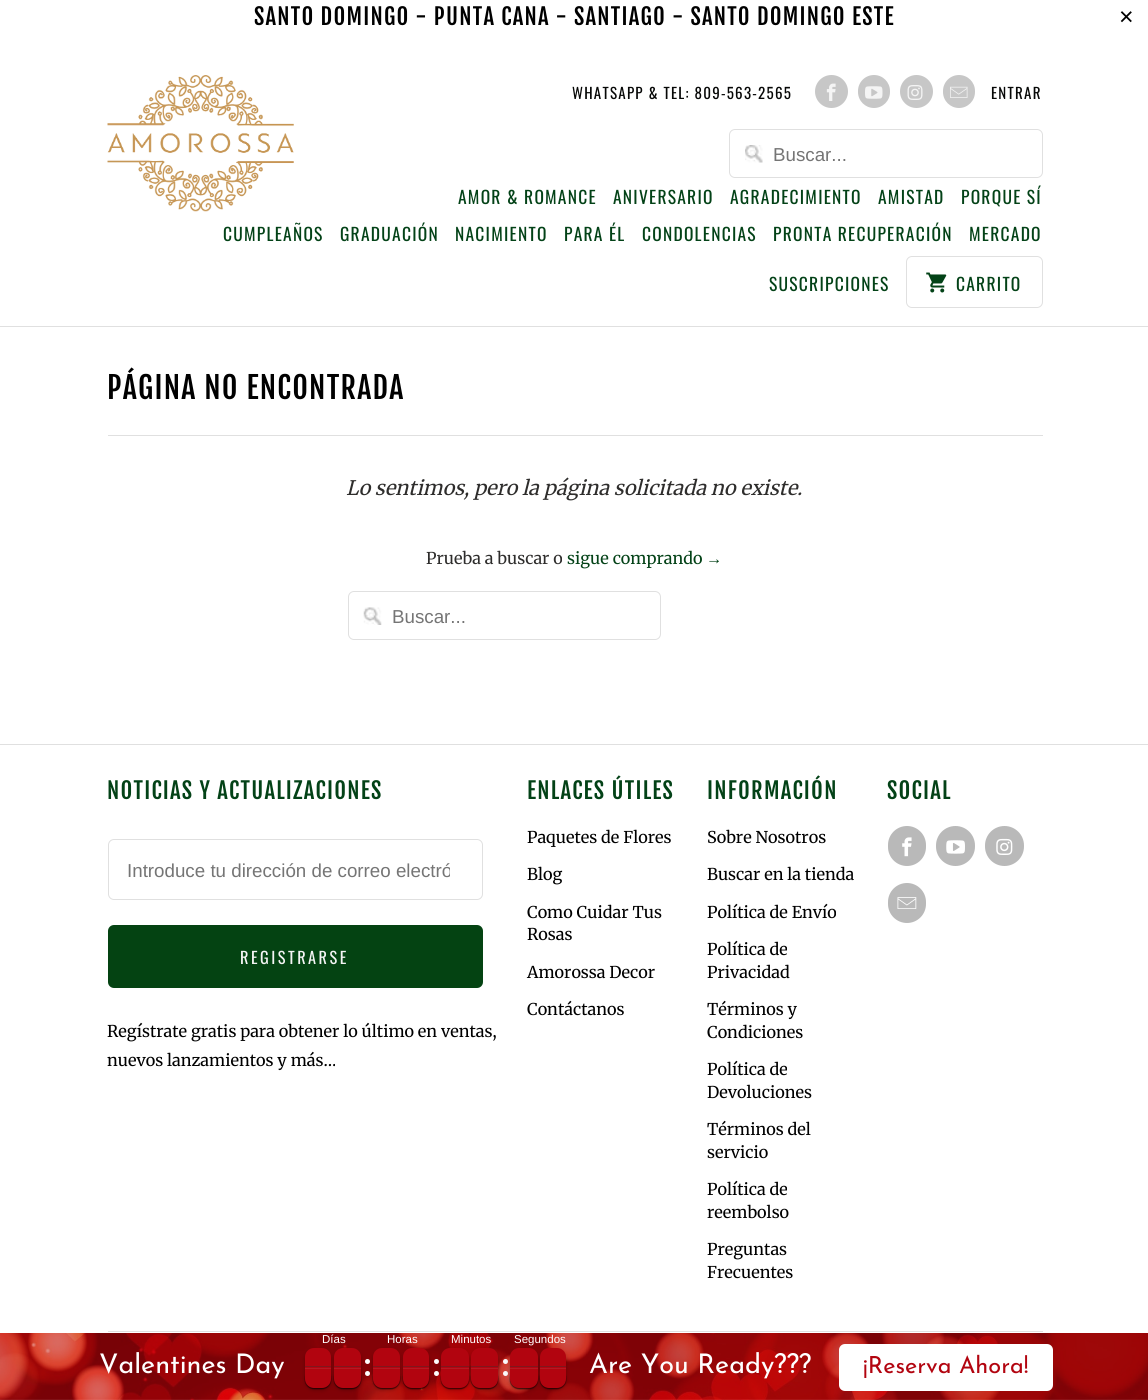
#include <cairo.h>
#include <math.h>
#include <stddef.h>

typedef struct { double x, y; const char *s; } line_t;

static void ink(cairo_t *ctx, unsigned color) {
    cairo_set_source_rgb(ctx, (color >> 16) / 255.0, (color >> 8 & 255) / 255.0, (color & 255) / 255.0);
}

static void write_spaced(cairo_t *ctx, double x, double y, const char *s, double letter, double word) {
    cairo_move_to(ctx, x, y);
    while (*s) {
        char ch[5] = {0};
        int n = 0;
        do ch[n++] = *s++; while ((*s & 0xC0) == 0x80);
        cairo_show_text(ctx, ch);
        cairo_rel_move_to(ctx, letter + word * (*ch == ' '), 0);
    }
}

static void round_path(cairo_t *ctx, double x, double y, double w, double h, double r) {
    cairo_new_sub_path(ctx);
    cairo_arc(ctx, x + w - r, y + h - r, r, 0, M_PI / 2);
    cairo_arc(ctx, x + r, y + h - r, r, M_PI / 2, M_PI);
    cairo_arc(ctx, x + r, y + r, r, M_PI, 1.5 * M_PI);
    cairo_arc(ctx, x + w - r, y + r, r, 1.5 * M_PI, 2 * M_PI);
    cairo_close_path(ctx);
}

static void blur_box(cairo_t *ctx, double x, double y, double w, double h, double r, double blur, double alpha) {
    cairo_push_group_with_content(ctx, CAIRO_CONTENT_ALPHA);
    cairo_set_operator(ctx, CAIRO_OPERATOR_SOURCE);
    for (int i = 15; i >= -15 && fmin(w, h) + blur * i / 3 > 0; i -= 2) {
        double e = blur * i / 6;
        cairo_set_source_rgba(ctx, 0, 0, 0, alpha * erfc((i - 1) / 8.5) / 2);
        round_path(ctx, x - e, y - e, w + 2 * e, h + 2 * e, fmax(0, fmin(r + e + blur * .6, fmin(w, h) / 2 + e)));
        cairo_fill(ctx);
    }
    cairo_pattern_t *soft = cairo_pop_group(ctx);
    cairo_mask(ctx, soft);
    cairo_pattern_destroy(soft);
}

static void paste(cairo_t *ctx, const char *path, double x, double y, double w, double h) {
    cairo_surface_t *image = cairo_image_surface_create_from_png(path);
    cairo_save(ctx);
    cairo_set_source_surface(ctx, image, x, y);
    cairo_rectangle(ctx, x, y, w, h);
    cairo_fill(ctx);
    cairo_restore(ctx);
    cairo_surface_destroy(image);
}

int main(void) {
    cairo_surface_t *surface = cairo_image_surface_create(CAIRO_FORMAT_RGB24, 1148, 1400);
    cairo_t *ctx = cairo_create(surface);
    cairo_font_options_t *options = cairo_font_options_create();
    cairo_font_options_set_hint_metrics(options, CAIRO_HINT_METRICS_OFF);
    cairo_font_options_set_hint_style(options, CAIRO_HINT_STYLE_NONE);
    cairo_set_font_options(ctx, options);
    cairo_set_miter_limit(ctx, 4);
    ink(ctx, 0xFFFFFF);
    cairo_paint(ctx);
    cairo_select_font_face(ctx, "Fjalla One", CAIRO_FONT_SLANT_NORMAL, CAIRO_FONT_WEIGHT_NORMAL);
    cairo_set_font_size(ctx, 22.5);
    ink(ctx, 0x000000);
    write_spaced(ctx, 254, 25, "SANTO DOMINGO - PUNTA CANA - SANTIAGO - SANTO DOMINGO ESTE", 1.25, 0);
    cairo_select_font_face(ctx, "Liberation Sans", CAIRO_FONT_SLANT_NORMAL, CAIRO_FONT_WEIGHT_NORMAL);
    cairo_set_font_size(ctx, 25);
    write_spaced(ctx, 1119, 25, "×", 1.25, 0);
    ink(ctx, 0xE0E0E0);
    cairo_rectangle(ctx, 0, 326, 1148, 1);
    cairo_fill(ctx);
    paste(ctx, "media/1.png", 107, 75, 187, 137);
    cairo_select_font_face(ctx, "Oswald", CAIRO_FONT_SLANT_NORMAL, CAIRO_FONT_WEIGHT_NORMAL);
    cairo_set_font_size(ctx, 15);
    ink(ctx, 0x070807);
    write_spaced(ctx, 572, 99, "WHATSAPP & TEL: 809-563-2565", 1.25, 0);
    ink(ctx, 0xC7C7C7);
    cairo_new_path(ctx);
    cairo_arc(ctx, 831.5, 91.5, 16.5, 0, 2 * M_PI);
    cairo_fill(ctx);
    paste(ctx, "media/2.png", 826, 83, 10, 18);
    round_path(ctx, 858, 75, 32, 33, 16);
    cairo_fill(ctx);
    paste(ctx, "media/3.png", 865, 86, 18, 13);
    cairo_arc(ctx, 916.5, 91.5, 16.5, 0, 2 * M_PI);
    cairo_fill(ctx);
    paste(ctx, "media/4.png", 907, 85, 16, 15);
    round_path(ctx, 943, 75, 32, 33, 16);
    cairo_fill(ctx);
    paste(ctx, "media/5.png", 950, 86, 18, 12);
    ink(ctx, 0x070807);
    write_spaced(ctx, 991, 99, "ENTRAR", 1.25, 0);
    paste(ctx, "media/6.png", 745, 145, 18, 18);
    round_path(ctx, 729.5, 129.5, 313, 48, 5.5);
    ink(ctx, 0xE0E0E0);
    cairo_set_line_width(ctx, 1);
    cairo_stroke(ctx);
    cairo_select_font_face(ctx, "Liberation Sans", CAIRO_FONT_SLANT_NORMAL, CAIRO_FONT_WEIGHT_NORMAL);
    cairo_set_font_size(ctx, 18.75);
    ink(ctx, 0x757575);
    cairo_move_to(ctx, 773, 161);
    cairo_show_text(ctx, "Buscar...");
    cairo_select_font_face(ctx, "Oswald", CAIRO_FONT_SLANT_NORMAL, CAIRO_FONT_WEIGHT_NORMAL);
    cairo_set_font_size(ctx, 17.5);
    ink(ctx, 0x034217);
    {
        static const line_t items[] = {
            {458, 204, "AMOR & ROMANCE"},
            {613, 204, "ANIVERSARIO"},
            {730, 204, "AGRADECIMIENTO"},
            {878, 204, "AMISTAD"},
            {961, 204, "PORQUE SÍ"},
            {223, 241, "CUMPLEAÑOS"},
            {340, 241, "GRADUACIÓN"},
            {455, 241, "NACIMIENTO"},
            {564, 241, "PARA ÉL"},
            {642, 241, "CONDOLENCIAS"},
            {773, 241, "PRONTA RECUPERACIÓN"},
            {969, 241, "MERCADO"},
            {769, 291, "SUSCRIPCIONES"},
        };
        for (size_t i = 0; i < sizeof items / sizeof *items; i++) {
            write_spaced(ctx, items[i].x, items[i].y, items[i].s, 1.25, 0);
        }
    }
    round_path(ctx, 906.5, 256.5, 136, 51, 5.5);
    ink(ctx, 0xE0E0E0);
    cairo_stroke(ctx);
    paste(ctx, "media/7.png", 926, 272, 21, 21);
    ink(ctx, 0x034217);
    write_spaced(ctx, 956, 291, "CARRITO", 1.25, 0);
    ink(ctx, 0xE0E0E0);
    cairo_rectangle(ctx, 108, 435, 935, 1);
    cairo_fill(ctx);
    cairo_select_font_face(ctx, "Fjalla One", CAIRO_FONT_SLANT_NORMAL, CAIRO_FONT_WEIGHT_NORMAL);
    cairo_set_font_size(ctx, 30);
    ink(ctx, 0x000000);
    write_spaced(ctx, 107, 399, "PÁGINA NO ENCONTRADA", 1.25, 0);
    cairo_select_font_face(ctx, "Merriweather", CAIRO_FONT_SLANT_ITALIC, CAIRO_FONT_WEIGHT_NORMAL);
    cairo_set_font_size(ctx, 20);
    ink(ctx, 0x2E2D2C);
    cairo_move_to(ctx, 346, 495);
    cairo_show_text(ctx, "Lo sentimos, pero la página solicitada no existe.");
    cairo_select_font_face(ctx, "Merriweather", CAIRO_FONT_SLANT_NORMAL, CAIRO_FONT_WEIGHT_NORMAL);
    cairo_set_font_size(ctx, 16.25);
    cairo_move_to(ctx, 426, 564);
    cairo_show_text(ctx, "Prueba a buscar o");
    ink(ctx, 0x034217);
    cairo_move_to(ctx, 567, 564);
    cairo_show_text(ctx, "sigue comprando");
    cairo_select_font_face(ctx, "Liberation Serif", CAIRO_FONT_SLANT_NORMAL, CAIRO_FONT_WEIGHT_NORMAL);
    cairo_move_to(ctx, 706, 564);
    cairo_show_text(ctx, "→");
    paste(ctx, "media/8.png", 363, 607, 19, 18);
    round_path(ctx, 348.5, 591.5, 312, 48, 5.5);
    ink(ctx, 0xE0E0E0);
    cairo_stroke(ctx);
    cairo_select_font_face(ctx, "Liberation Sans", CAIRO_FONT_SLANT_NORMAL, CAIRO_FONT_WEIGHT_NORMAL);
    cairo_set_font_size(ctx, 18.75);
    ink(ctx, 0x757575);
    cairo_move_to(ctx, 392, 623);
    cairo_show_text(ctx, "Buscar...");
    ink(ctx, 0xE0E0E0);
    cairo_rectangle(ctx, 0, 744, 1148, 1);
    cairo_fill(ctx);
    cairo_select_font_face(ctx, "Fjalla One", CAIRO_FONT_SLANT_NORMAL, CAIRO_FONT_WEIGHT_NORMAL);
    cairo_set_font_size(ctx, 22.5);
    ink(ctx, 0x034217);
    write_spaced(ctx, 107, 799, "NOTICIAS Y ACTUALIZACIONES", 1.25, 0);
    round_path(ctx, 108.5, 839.5, 374, 60, 5.5);
    ink(ctx, 0xE0E0E0);
    cairo_stroke(ctx);
    cairo_save(ctx);
    cairo_rectangle(ctx, 128, 859, 322, 21);
    cairo_clip(ctx);
    cairo_select_font_face(ctx, "Liberation Sans", CAIRO_FONT_SLANT_NORMAL, CAIRO_FONT_WEIGHT_NORMAL);
    cairo_set_font_size(ctx, 18.75);
    ink(ctx, 0x757575);
    cairo_move_to(ctx, 127, 877);
    cairo_show_text(ctx, "Introduce tu dirección de correo electró");
    cairo_restore(ctx);
    ink(ctx, 0x044312);
    round_path(ctx, 108, 925, 375, 63, 6);
    cairo_fill(ctx);
    cairo_select_font_face(ctx, "Oswald", CAIRO_FONT_SLANT_NORMAL, CAIRO_FONT_WEIGHT_NORMAL);
    cairo_set_font_size(ctx, 16.25);
    ink(ctx, 0xF4F4F4);
    write_spaced(ctx, 240, 964, "REGISTRARSE", 2.5, 0);
    cairo_select_font_face(ctx, "Merriweather", CAIRO_FONT_SLANT_NORMAL, CAIRO_FONT_WEIGHT_NORMAL);
    ink(ctx, 0x000000);
    cairo_move_to(ctx, 107, 1037);
    cairo_show_text(ctx, "Regístrate gratis para obtener lo último en ventas,");
    cairo_move_to(ctx, 107, 1066);
    cairo_show_text(ctx, "nuevos lanzamientos y más…");
    cairo_select_font_face(ctx, "Fjalla One", CAIRO_FONT_SLANT_NORMAL, CAIRO_FONT_WEIGHT_NORMAL);
    cairo_set_font_size(ctx, 22.5);
    ink(ctx, 0x034217);
    write_spaced(ctx, 527, 799, "ENLACES ÚTILES", 1.25, 0);
    cairo_select_font_face(ctx, "Merriweather", CAIRO_FONT_SLANT_NORMAL, CAIRO_FONT_WEIGHT_NORMAL);
    cairo_set_font_size(ctx, 16.25);
    ink(ctx, 0x000000);
    {
        static const line_t items[] = {
            {527, 843, "Paquetes de Flores"},
            {527, 880, "Blog"},
            {527, 918, "Como Cuidar Tus"},
            {527, 940, "Rosas"},
            {527, 978, "Amorossa Decor"},
            {527, 1015, "Contáctanos"},
        };
        for (size_t i = 0; i < sizeof items / sizeof *items; i++) {
            cairo_move_to(ctx, items[i].x, items[i].y);
            cairo_show_text(ctx, items[i].s);
        }
    }
    cairo_select_font_face(ctx, "Fjalla One", CAIRO_FONT_SLANT_NORMAL, CAIRO_FONT_WEIGHT_NORMAL);
    cairo_set_font_size(ctx, 22.5);
    ink(ctx, 0x034217);
    write_spaced(ctx, 707, 799, "INFORMACIÓN", 1.25, 0);
    cairo_select_font_face(ctx, "Merriweather", CAIRO_FONT_SLANT_NORMAL, CAIRO_FONT_WEIGHT_NORMAL);
    cairo_set_font_size(ctx, 16.25);
    ink(ctx, 0x000000);
    {
        static const line_t items[] = {
            {707, 843, "Sobre Nosotros"},
            {707, 880, "Buscar en la tienda"},
            {707, 918, "Política de Envío"},
            {707, 955, "Política de"},
            {707, 978, "Privacidad"},
            {707, 1015, "Términos y"},
            {707, 1038, "Condiciones"},
            {707, 1075, "Política de"},
            {707, 1098, "Devoluciones"},
            {707, 1135, "Términos del"},
            {707, 1158, "servicio"},
            {707, 1195, "Política de"},
            {707, 1218, "reembolso"},
            {707, 1255, "Preguntas"},
            {707, 1278, "Frecuentes"},
        };
        for (size_t i = 0; i < sizeof items / sizeof *items; i++) {
            cairo_move_to(ctx, items[i].x, items[i].y);
            cairo_show_text(ctx, items[i].s);
        }
    }
    cairo_select_font_face(ctx, "Fjalla One", CAIRO_FONT_SLANT_NORMAL, CAIRO_FONT_WEIGHT_NORMAL);
    cairo_set_font_size(ctx, 22.5);
    ink(ctx, 0x034217);
    write_spaced(ctx, 887, 799, "SOCIAL", 1.25, 0);
    ink(ctx, 0xB9B9B9);
    round_path(ctx, 888, 826, 38, 40, 19);
    cairo_fill(ctx);
    paste(ctx, "media/9.png", 902, 837, 10, 20);
    round_path(ctx, 936, 826, 39, 40, 19.5);
    cairo_fill(ctx);
    paste(ctx, "media/10.png", 946, 840, 19, 14);
    round_path(ctx, 985, 826, 39, 40, 19.5);
    cairo_fill(ctx);
    paste(ctx, "media/11.png", 996, 838, 17, 17);
    round_path(ctx, 888, 883, 38, 40, 19);
    cairo_fill(ctx);
    paste(ctx, "media/12.png", 897, 897, 20, 12);
    ink(ctx, 0xE0E0E0);
    cairo_rectangle(ctx, 108, 1331, 935, 1);
    cairo_fill(ctx);
    paste(ctx, "media/13.png", 0, 1333, 1148, 67);
    ink(ctx, 0x000000);
    blur_box(ctx, 305, 1350, 26, 40, 9, 2, 0.24);
    blur_box(ctx, 334, 1350, 27, 40, 9, 2, 0.24);
    cairo_select_font_face(ctx, "Liberation Sans", CAIRO_FONT_SLANT_NORMAL, CAIRO_FONT_WEIGHT_NORMAL);
    cairo_set_font_size(ctx, 11.5);
    ink(ctx, 0xFFFFFF);
    cairo_move_to(ctx, 322, 1343);
    cairo_show_text(ctx, "Días");
    ink(ctx, 0x000000);
    blur_box(ctx, 305, 1369, 26, 20, 9, 0.5, 0.4);
    ink(ctx, 0xB2040F);
    cairo_new_path(ctx);
    cairo_move_to(ctx, 314, 1348);
    cairo_line_to(ctx, 322, 1348);
    cairo_curve_to(ctx, 327, 1348, 331, 1352, 331, 1357);
    cairo_line_to(ctx, 331, 1368);
    cairo_line_to(ctx, 305, 1368);
    cairo_line_to(ctx, 305, 1357);
    cairo_curve_to(ctx, 305, 1352, 309, 1348, 314, 1348);
    cairo_close_path(ctx);
    cairo_fill(ctx);
    cairo_set_source_rgba(ctx, 0.2, 0.2, 0.2, 0.4);
    cairo_rectangle(ctx, 305, 1366, 26, 1);
    cairo_fill(ctx);
    ink(ctx, 0x000000);
    blur_box(ctx, 305, 1369, 26, 20, 9, 0.5, 0.4);
    ink(ctx, 0xB2040F);
    cairo_new_path(ctx);
    cairo_move_to(ctx, 305, 1368);
    cairo_line_to(ctx, 331, 1368);
    cairo_line_to(ctx, 331, 1379);
    cairo_curve_to(ctx, 331, 1384, 327, 1388, 322, 1388);
    cairo_line_to(ctx, 314, 1388);
    cairo_curve_to(ctx, 309, 1388, 305, 1384, 305, 1379);
    cairo_close_path(ctx);
    cairo_fill(ctx);
    cairo_set_source_rgba(ctx, 0.8, 0.8, 0.8, 0.1);
    cairo_rectangle(ctx, 305, 1368, 26, 1);
    cairo_fill(ctx);
    ink(ctx, 0x000000);
    blur_box(ctx, 334, 1369, 27, 20, 9, 0.5, 0.4);
    ink(ctx, 0xB2040F);
    cairo_new_path(ctx);
    cairo_move_to(ctx, 343, 1348);
    cairo_line_to(ctx, 352, 1348);
    cairo_curve_to(ctx, 357, 1348, 361, 1352, 361, 1357);
    cairo_line_to(ctx, 361, 1368);
    cairo_line_to(ctx, 334, 1368);
    cairo_line_to(ctx, 334, 1357);
    cairo_curve_to(ctx, 334, 1352, 338, 1348, 343, 1348);
    cairo_close_path(ctx);
    cairo_fill(ctx);
    cairo_set_source_rgba(ctx, 0.2, 0.2, 0.2, 0.4);
    cairo_rectangle(ctx, 334, 1366, 27, 1);
    cairo_fill(ctx);
    ink(ctx, 0x000000);
    blur_box(ctx, 334, 1369, 27, 20, 9, 0.5, 0.4);
    ink(ctx, 0xB2040F);
    cairo_new_path(ctx);
    cairo_move_to(ctx, 334, 1368);
    cairo_line_to(ctx, 361, 1368);
    cairo_line_to(ctx, 361, 1379);
    cairo_curve_to(ctx, 361, 1384, 357, 1388, 352, 1388);
    cairo_line_to(ctx, 343, 1388);
    cairo_curve_to(ctx, 338, 1388, 334, 1384, 334, 1379);
    cairo_close_path(ctx);
    cairo_fill(ctx);
    cairo_set_source_rgba(ctx, 0.8, 0.8, 0.8, 0.1);
    cairo_rectangle(ctx, 334, 1368, 27, 1);
    cairo_fill(ctx);
    ink(ctx, 0xFCFCFC);
    cairo_arc(ctx, 367.5, 1361.5, 2.5, 0, 2 * M_PI);
    cairo_fill(ctx);
    cairo_arc(ctx, 367.5, 1373.5, 2.5, 0, 2 * M_PI);
    cairo_fill(ctx);
    ink(ctx, 0x000000);
    blur_box(ctx, 373, 1350, 27, 40, 9, 2, 0.24);
    blur_box(ctx, 403, 1350, 26, 40, 9, 2, 0.24);
    ink(ctx, 0xFFFFFF);
    cairo_move_to(ctx, 387, 1343);
    cairo_show_text(ctx, "Horas");
    ink(ctx, 0x000000);
    blur_box(ctx, 373, 1369, 27, 20, 9, 0.5, 0.4);
    ink(ctx, 0xB2040F);
    cairo_new_path(ctx);
    cairo_move_to(ctx, 382, 1348);
    cairo_line_to(ctx, 391, 1348);
    cairo_curve_to(ctx, 396, 1348, 400, 1352, 400, 1357);
    cairo_line_to(ctx, 400, 1368);
    cairo_line_to(ctx, 373, 1368);
    cairo_line_to(ctx, 373, 1357);
    cairo_curve_to(ctx, 373, 1352, 377, 1348, 382, 1348);
    cairo_close_path(ctx);
    cairo_fill(ctx);
    cairo_set_source_rgba(ctx, 0.2, 0.2, 0.2, 0.4);
    cairo_rectangle(ctx, 373, 1366, 27, 1);
    cairo_fill(ctx);
    ink(ctx, 0x000000);
    blur_box(ctx, 373, 1369, 27, 20, 9, 0.5, 0.4);
    ink(ctx, 0xB2040F);
    cairo_new_path(ctx);
    cairo_move_to(ctx, 373, 1368);
    cairo_line_to(ctx, 400, 1368);
    cairo_line_to(ctx, 400, 1379);
    cairo_curve_to(ctx, 400, 1384, 396, 1388, 391, 1388);
    cairo_line_to(ctx, 382, 1388);
    cairo_curve_to(ctx, 377, 1388, 373, 1384, 373, 1379);
    cairo_close_path(ctx);
    cairo_fill(ctx);
    cairo_set_source_rgba(ctx, 0.8, 0.8, 0.8, 0.1);
    cairo_rectangle(ctx, 373, 1368, 27, 1);
    cairo_fill(ctx);
    ink(ctx, 0x000000);
    blur_box(ctx, 403, 1369, 26, 20, 9, 0.5, 0.4);
    ink(ctx, 0xB2040F);
    cairo_new_path(ctx);
    cairo_move_to(ctx, 412, 1348);
    cairo_line_to(ctx, 420, 1348);
    cairo_curve_to(ctx, 425, 1348, 429, 1352, 429, 1357);
    cairo_line_to(ctx, 429, 1368);
    cairo_line_to(ctx, 403, 1368);
    cairo_line_to(ctx, 403, 1357);
    cairo_curve_to(ctx, 403, 1352, 407, 1348, 412, 1348);
    cairo_close_path(ctx);
    cairo_fill(ctx);
    cairo_set_source_rgba(ctx, 0.2, 0.2, 0.2, 0.4);
    cairo_rectangle(ctx, 403, 1366, 26, 1);
    cairo_fill(ctx);
    ink(ctx, 0x000000);
    blur_box(ctx, 403, 1369, 26, 20, 9, 0.5, 0.4);
    ink(ctx, 0xB2040F);
    cairo_new_path(ctx);
    cairo_move_to(ctx, 403, 1368);
    cairo_line_to(ctx, 429, 1368);
    cairo_line_to(ctx, 429, 1379);
    cairo_curve_to(ctx, 429, 1384, 425, 1388, 420, 1388);
    cairo_line_to(ctx, 412, 1388);
    cairo_curve_to(ctx, 407, 1388, 403, 1384, 403, 1379);
    cairo_close_path(ctx);
    cairo_fill(ctx);
    cairo_set_source_rgba(ctx, 0.8, 0.8, 0.8, 0.1);
    cairo_rectangle(ctx, 403, 1368, 26, 1);
    cairo_fill(ctx);
    ink(ctx, 0x000000);
    blur_box(ctx, 471, 1351, 27, 40, 9, 5, 0.05);
    blur_box(ctx, 471, 1350, 27, 40, 9, 2, 0.24);
    ink(ctx, 0xFCFCFC);
    cairo_arc(ctx, 436.5, 1361.5, 2.5, 0, 2 * M_PI);
    cairo_fill(ctx);
    cairo_arc(ctx, 436.5, 1373.5, 2.5, 0, 2 * M_PI);
    cairo_fill(ctx);
    ink(ctx, 0x000000);
    blur_box(ctx, 441, 1350, 28, 40, 9, 2, 0.24);
    ink(ctx, 0xFFFFFF);
    cairo_move_to(ctx, 451, 1343);
    cairo_show_text(ctx, "Minutos");
    ink(ctx, 0x000000);
    blur_box(ctx, 471, 1369, 27, 20, 9, 0.5, 0.4);
    blur_box(ctx, 441, 1369, 28, 20, 9, 0.5, 0.4);
    ink(ctx, 0xB2040F);
    cairo_new_path(ctx);
    cairo_move_to(ctx, 450, 1348);
    cairo_line_to(ctx, 460, 1348);
    cairo_curve_to(ctx, 465, 1348, 469, 1352, 469, 1357);
    cairo_line_to(ctx, 469, 1368);
    cairo_line_to(ctx, 441, 1368);
    cairo_line_to(ctx, 441, 1357);
    cairo_curve_to(ctx, 441, 1352, 445, 1348, 450, 1348);
    cairo_close_path(ctx);
    cairo_fill(ctx);
    cairo_set_source_rgba(ctx, 0.2, 0.2, 0.2, 0.4);
    cairo_rectangle(ctx, 441, 1366, 28, 1);
    cairo_fill(ctx);
    ink(ctx, 0x000000);
    blur_box(ctx, 441, 1369, 28, 20, 9, 0.5, 0.4);
    ink(ctx, 0xFCFCFC);
    cairo_arc(ctx, 505.5, 1361.5, 2.5, 0, 2 * M_PI);
    cairo_fill(ctx);
    cairo_arc(ctx, 505.5, 1373.5, 2.5, 0, 2 * M_PI);
    cairo_fill(ctx);
    ink(ctx, 0x000000);
    blur_box(ctx, 510, 1351, 28, 40, 9, 5, 0.05);
    ink(ctx, 0xB2040F);
    cairo_new_path(ctx);
    cairo_move_to(ctx, 480, 1348);
    cairo_line_to(ctx, 489, 1348);
    cairo_curve_to(ctx, 494, 1348, 498, 1352, 498, 1357);
    cairo_line_to(ctx, 498, 1368);
    cairo_line_to(ctx, 471, 1368);
    cairo_line_to(ctx, 471, 1357);
    cairo_curve_to(ctx, 471, 1352, 475, 1348, 480, 1348);
    cairo_close_path(ctx);
    cairo_fill(ctx);
    cairo_set_source_rgba(ctx, 0.2, 0.2, 0.2, 0.4);
    cairo_rectangle(ctx, 471, 1366, 27, 1);
    cairo_fill(ctx);
    ink(ctx, 0xB2040F);
    cairo_new_path(ctx);
    cairo_move_to(ctx, 441, 1368);
    cairo_line_to(ctx, 469, 1368);
    cairo_line_to(ctx, 469, 1379);
    cairo_curve_to(ctx, 469, 1384, 465, 1388, 460, 1388);
    cairo_line_to(ctx, 450, 1388);
    cairo_curve_to(ctx, 445, 1388, 441, 1384, 441, 1379);
    cairo_close_path(ctx);
    cairo_fill(ctx);
    cairo_set_source_rgba(ctx, 0.8, 0.8, 0.8, 0.1);
    cairo_rectangle(ctx, 441, 1368, 28, 1);
    cairo_fill(ctx);
    ink(ctx, 0x000000);
    blur_box(ctx, 471, 1369, 27, 20, 9, 0.5, 0.4);
    ink(ctx, 0xB2040F);
    cairo_new_path(ctx);
    cairo_move_to(ctx, 471, 1368);
    cairo_line_to(ctx, 498, 1368);
    cairo_line_to(ctx, 498, 1379);
    cairo_curve_to(ctx, 498, 1384, 494, 1388, 489, 1388);
    cairo_line_to(ctx, 480, 1388);
    cairo_curve_to(ctx, 475, 1388, 471, 1384, 471, 1379);
    cairo_close_path(ctx);
    cairo_fill(ctx);
    cairo_set_source_rgba(ctx, 0.8, 0.8, 0.8, 0.1);
    cairo_rectangle(ctx, 471, 1368, 27, 1);
    cairo_fill(ctx);
    ink(ctx, 0x000000);
    blur_box(ctx, 510, 1350, 28, 40, 9, 2, 0.24);
    blur_box(ctx, 540, 1350, 26, 40, 9, 2, 0.24);
    ink(ctx, 0xFFFFFF);
    cairo_move_to(ctx, 514, 1343);
    cairo_show_text(ctx, "Segundos");
    ink(ctx, 0x000000);
    blur_box(ctx, 510, 1369, 28, 20, 9, 0.5, 0.4);
    blur_box(ctx, 540, 1369, 26, 20, 9, 0.5, 0.4);
    ink(ctx, 0xB2040F);
    cairo_new_path(ctx);
    cairo_move_to(ctx, 519, 1348);
    cairo_line_to(ctx, 529, 1348);
    cairo_curve_to(ctx, 534, 1348, 538, 1352, 538, 1357);
    cairo_line_to(ctx, 538, 1368);
    cairo_line_to(ctx, 510, 1368);
    cairo_line_to(ctx, 510, 1357);
    cairo_curve_to(ctx, 510, 1352, 514, 1348, 519, 1348);
    cairo_close_path(ctx);
    cairo_fill(ctx);
    cairo_set_source_rgba(ctx, 0.2, 0.2, 0.2, 0.4);
    cairo_rectangle(ctx, 510, 1366, 28, 1);
    cairo_fill(ctx);
    ink(ctx, 0x000000);
    blur_box(ctx, 510, 1369, 28, 20, 9, 0.5, 0.4);
    ink(ctx, 0xB2040F);
    cairo_new_path(ctx);
    cairo_move_to(ctx, 510, 1368);
    cairo_line_to(ctx, 538, 1368);
    cairo_line_to(ctx, 538, 1379);
    cairo_curve_to(ctx, 538, 1384, 534, 1388, 529, 1388);
    cairo_line_to(ctx, 519, 1388);
    cairo_curve_to(ctx, 514, 1388, 510, 1384, 510, 1379);
    cairo_close_path(ctx);
    cairo_fill(ctx);
    cairo_set_source_rgba(ctx, 0.8, 0.8, 0.8, 0.1);
    cairo_rectangle(ctx, 510, 1368, 28, 1);
    cairo_fill(ctx);
    ink(ctx, 0xB2040F);
    cairo_new_path(ctx);
    cairo_move_to(ctx, 549, 1348);
    cairo_line_to(ctx, 557, 1348);
    cairo_curve_to(ctx, 562, 1348, 566, 1352, 566, 1357);
    cairo_line_to(ctx, 566, 1368);
    cairo_line_to(ctx, 540, 1368);
    cairo_line_to(ctx, 540, 1357);
    cairo_curve_to(ctx, 540, 1352, 544, 1348, 549, 1348);
    cairo_close_path(ctx);
    cairo_fill(ctx);
    cairo_set_source_rgba(ctx, 0.2, 0.2, 0.2, 0.4);
    cairo_rectangle(ctx, 540, 1366, 26, 1);
    cairo_fill(ctx);
    ink(ctx, 0x000000);
    blur_box(ctx, 540, 1369, 26, 20, 9, 0.5, 0.4);
    ink(ctx, 0xB2040F);
    cairo_new_path(ctx);
    cairo_move_to(ctx, 540, 1368);
    cairo_line_to(ctx, 566, 1368);
    cairo_line_to(ctx, 566, 1379);
    cairo_curve_to(ctx, 566, 1384, 562, 1388, 557, 1388);
    cairo_line_to(ctx, 549, 1388);
    cairo_curve_to(ctx, 544, 1388, 540, 1384, 540, 1379);
    cairo_close_path(ctx);
    cairo_fill(ctx);
    cairo_set_source_rgba(ctx, 0.8, 0.8, 0.8, 0.1);
    cairo_rectangle(ctx, 540, 1368, 26, 1);
    cairo_fill(ctx);
    cairo_select_font_face(ctx, "Josefin Sans Thin", CAIRO_FONT_SLANT_NORMAL, CAIRO_FONT_WEIGHT_NORMAL);
    cairo_set_font_size(ctx, 27);
    ink(ctx, 0xFFFFFF);
    cairo_move_to(ctx, 99, 1373);
    cairo_show_text(ctx, "Valentines Day");
    cairo_move_to(ctx, 589, 1373);
    cairo_show_text(ctx, "Are You Ready?\077?");
    round_path(ctx, 839, 1344, 214, 47, 6);
    cairo_fill(ctx);
    cairo_set_font_size(ctx, 23.5);
    ink(ctx, 0xB2040F);
    cairo_move_to(ctx, 863, 1373);
    cairo_show_text(ctx, "¡Reserva Ahora!");
    cairo_surface_write_to_png(surface, "image.png");
    cairo_font_options_destroy(options);
    cairo_destroy(ctx);
    cairo_surface_destroy(surface);
    return 0;
}
